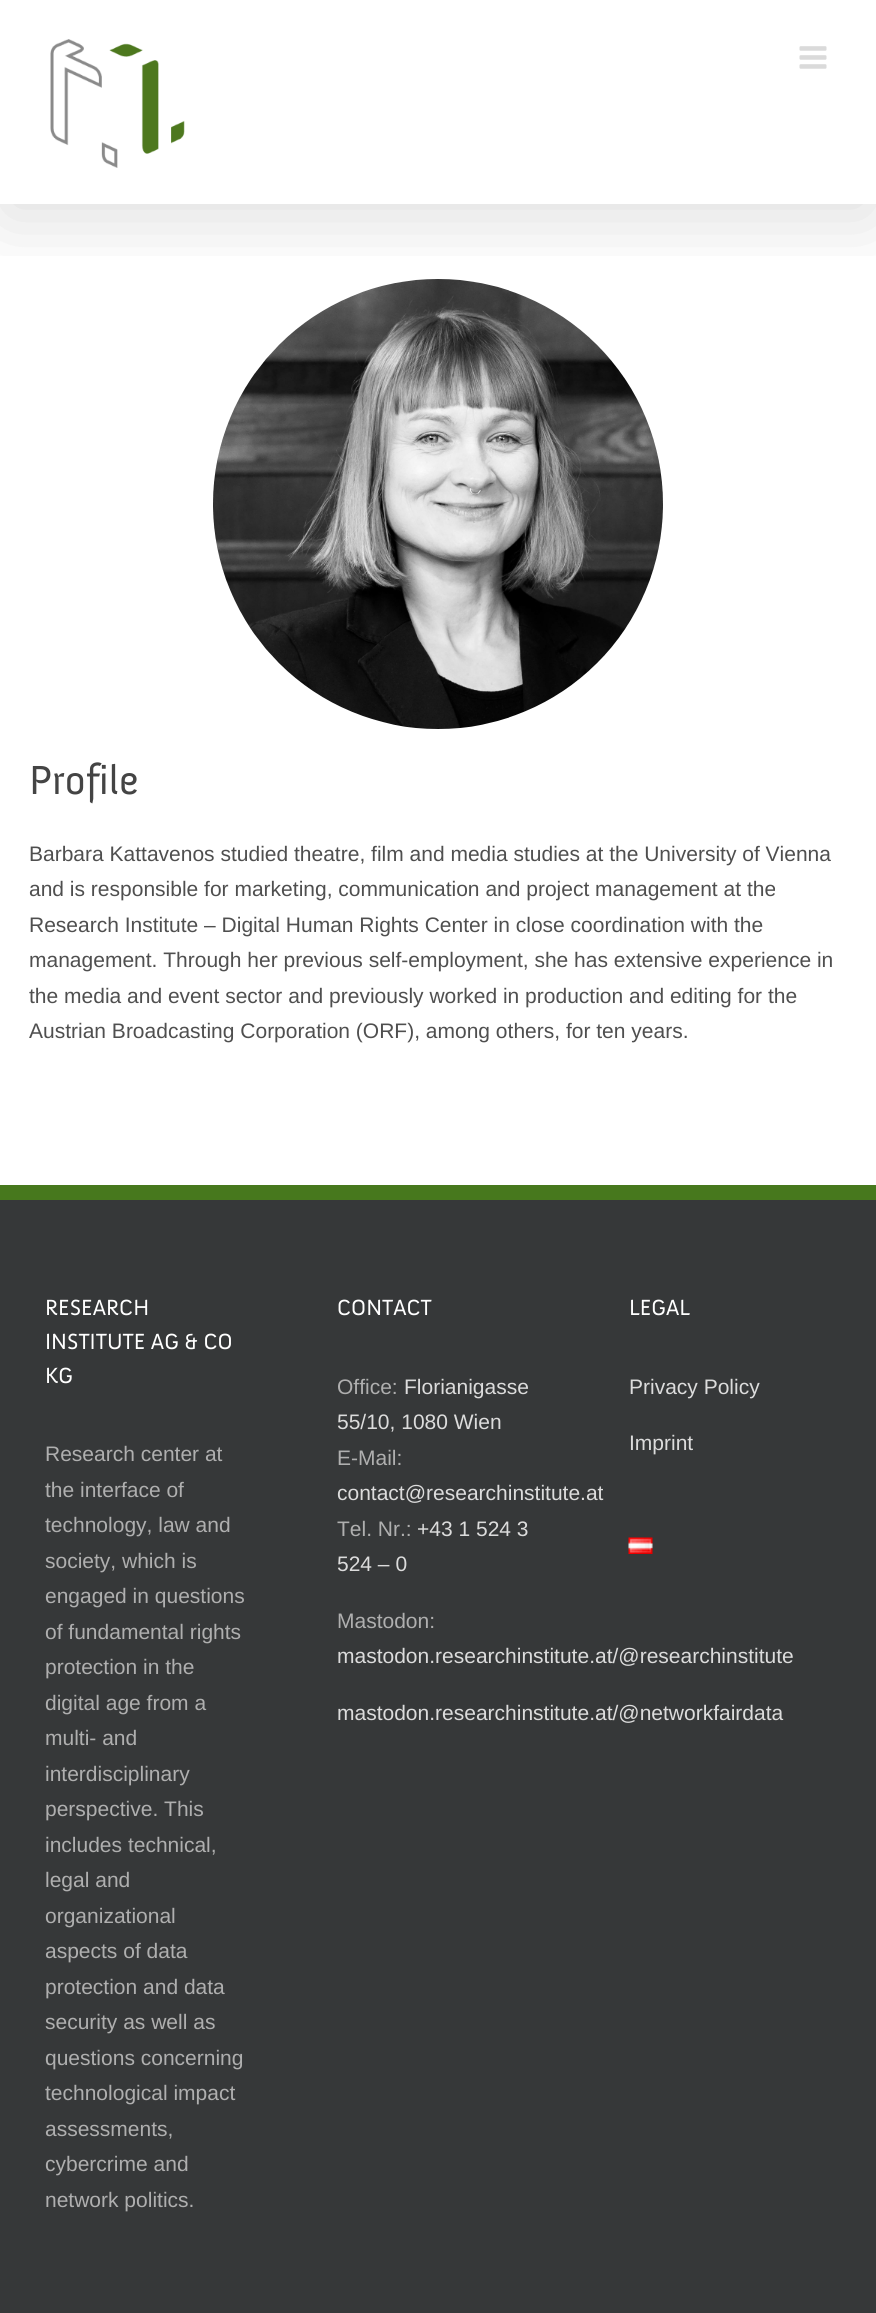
#include <cairo.h>
#include <math.h>
#include <stddef.h>

typedef struct { double x, y; const char *s; } line_t;

static void ink(cairo_t *ctx, unsigned color) {
    cairo_set_source_rgb(ctx, (color >> 16) / 255.0, (color >> 8 & 255) / 255.0, (color & 255) / 255.0);
}

static void round_path(cairo_t *ctx, double x, double y, double w, double h, double r) {
    cairo_new_sub_path(ctx);
    cairo_arc(ctx, x + w - r, y + h - r, r, 0, M_PI / 2);
    cairo_arc(ctx, x + r, y + h - r, r, M_PI / 2, M_PI);
    cairo_arc(ctx, x + r, y + r, r, M_PI, 1.5 * M_PI);
    cairo_arc(ctx, x + w - r, y + r, r, 1.5 * M_PI, 2 * M_PI);
    cairo_close_path(ctx);
}

static void blur_box(cairo_t *ctx, double x, double y, double w, double h, double r, double blur, double alpha) {
    cairo_push_group_with_content(ctx, CAIRO_CONTENT_ALPHA);
    cairo_set_operator(ctx, CAIRO_OPERATOR_SOURCE);
    for (int i = 15; i >= -15 && fmin(w, h) + blur * i / 3 > 0; i -= 2) {
        double e = blur * i / 6;
        cairo_set_source_rgba(ctx, 0, 0, 0, alpha * erfc((i - 1) / 8.5) / 2);
        round_path(ctx, x - e, y - e, w + 2 * e, h + 2 * e, fmax(0, fmin(r + e + blur * .6, fmin(w, h) / 2 + e)));
        cairo_fill(ctx);
    }
    cairo_pattern_t *soft = cairo_pop_group(ctx);
    cairo_mask(ctx, soft);
    cairo_pattern_destroy(soft);
}

static void paste(cairo_t *ctx, const char *path, double x, double y, double w, double h) {
    cairo_surface_t *image = cairo_image_surface_create_from_png(path);
    cairo_save(ctx);
    cairo_set_source_surface(ctx, image, x, y);
    cairo_rectangle(ctx, x, y, w, h);
    cairo_fill(ctx);
    cairo_restore(ctx);
    cairo_surface_destroy(image);
}

int main(void) {
    cairo_surface_t *surface = cairo_image_surface_create(CAIRO_FORMAT_RGB24, 876, 2313);
    cairo_t *ctx = cairo_create(surface);
    cairo_font_options_t *options = cairo_font_options_create();
    cairo_font_options_set_hint_metrics(options, CAIRO_HINT_METRICS_OFF);
    cairo_font_options_set_hint_style(options, CAIRO_HINT_STYLE_NONE);
    cairo_set_font_options(ctx, options);
    cairo_set_miter_limit(ctx, 4);
    ink(ctx, 0xFFFFFF);
    cairo_paint(ctx);
    paste(ctx, "media/3.png", 213, 279, 450, 450);
    cairo_save(ctx);
    cairo_rectangle(ctx, 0, 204, 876, 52);
    cairo_clip(ctx);
    ink(ctx, 0x000000);
    blur_box(ctx, 3, 18, 870, 198, 0, 37.5, 0.14);
    cairo_restore(ctx);
    paste(ctx, "media/1.png", 50, 39, 135, 129);
    paste(ctx, "media/2.png", 799, 46, 28, 23);
    cairo_select_font_face(ctx, "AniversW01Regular", CAIRO_FONT_SLANT_NORMAL, CAIRO_FONT_WEIGHT_NORMAL);
    cairo_set_font_size(ctx, 41.5);
    ink(ctx, 0x444444);
    cairo_move_to(ctx, 29, 794);
    cairo_show_text(ctx, "Profile");
    cairo_select_font_face(ctx, "Liberation Sans", CAIRO_FONT_SLANT_NORMAL, CAIRO_FONT_WEIGHT_NORMAL);
    cairo_set_font_size(ctx, 21);
    ink(ctx, 0x4F4F4F);
    {
        static const line_t items[] = {
            {29, 861, "Barbara Kattavenos studied theatre, film and media studies at the University of Vienna"},
            {29, 896, "and is responsible for marketing, communication and project management at the"},
            {29, 932, "Research Institute – Digital Human Rights Center in close coordination with the"},
            {29, 967, "management. Through her previous self-employment, she has extensive experience in"},
            {29, 1003, "the media and event sector and previously worked in production and editing for the"},
            {29, 1038, "Austrian Broadcasting Corporation (ORF), among others, for ten years."},
        };
        for (size_t i = 0; i < sizeof items / sizeof *items; i++) {
            cairo_move_to(ctx, items[i].x, items[i].y);
            cairo_show_text(ctx, items[i].s);
        }
    }
    ink(ctx, 0x363839);
    cairo_rectangle(ctx, 0, 1200, 876, 1113);
    cairo_fill(ctx);
    ink(ctx, 0x47781D);
    cairo_rectangle(ctx, 0, 1185, 876, 15);
    cairo_fill(ctx);
    cairo_select_font_face(ctx, "AniversW01Regular", CAIRO_FONT_SLANT_NORMAL, CAIRO_FONT_WEIGHT_NORMAL);
    cairo_set_font_size(ctx, 22.5);
    ink(ctx, 0xFFFFFF);
    {
        static const line_t items[] = {
            {45, 1315, "RESEARCH"},
            {45, 1349, "INSTITUTE AG & CO"},
            {45, 1383, "KG"},
        };
        for (size_t i = 0; i < sizeof items / sizeof *items; i++) {
            cairo_move_to(ctx, items[i].x, items[i].y);
            cairo_show_text(ctx, items[i].s);
        }
    }
    cairo_select_font_face(ctx, "Liberation Sans", CAIRO_FONT_SLANT_NORMAL, CAIRO_FONT_WEIGHT_NORMAL);
    cairo_set_font_size(ctx, 21);
    ink(ctx, 0xAFAFAF);
    {
        static const line_t items[] = {
            {45, 1461, "Research center at"},
            {45, 1497, "the interface of"},
            {45, 1532, "technology, law and"},
            {45, 1568, "society, which is"},
            {45, 1603, "engaged in questions"},
            {45, 1639, "of fundamental rights"},
            {45, 1674, "protection in the"},
            {45, 1710, "digital age from a"},
            {45, 1745, "multi- and"},
            {45, 1781, "interdisciplinary"},
            {45, 1816, "perspective. This"},
            {45, 1852, "includes technical,"},
            {45, 1887, "legal and"},
            {45, 1923, "organizational"},
            {45, 1958, "aspects of data"},
            {45, 1994, "protection and data"},
            {45, 2029, "security as well as"},
            {45, 2065, "questions concerning"},
            {45, 2100, "technological impact"},
            {45, 2136, "assessments,"},
            {45, 2171, "cybercrime and"},
            {45, 2207, "network politics."},
        };
        for (size_t i = 0; i < sizeof items / sizeof *items; i++) {
            cairo_move_to(ctx, items[i].x, items[i].y);
            cairo_show_text(ctx, items[i].s);
        }
    }
    cairo_select_font_face(ctx, "AniversW01Regular", CAIRO_FONT_SLANT_NORMAL, CAIRO_FONT_WEIGHT_NORMAL);
    cairo_set_font_size(ctx, 22.5);
    ink(ctx, 0xFFFFFF);
    cairo_move_to(ctx, 337, 1315);
    cairo_show_text(ctx, "CONTACT");
    cairo_select_font_face(ctx, "Liberation Sans", CAIRO_FONT_SLANT_NORMAL, CAIRO_FONT_WEIGHT_NORMAL);
    cairo_set_font_size(ctx, 21);
    ink(ctx, 0xAFAFAF);
    cairo_move_to(ctx, 337, 1394);
    cairo_show_text(ctx, "Office:");
    ink(ctx, 0xDCDCDC);
    cairo_move_to(ctx, 404, 1394);
    cairo_show_text(ctx, "Florianigasse");
    cairo_move_to(ctx, 337, 1429);
    cairo_show_text(ctx, "55/10, 1080 Wien");
    ink(ctx, 0xAFAFAF);
    cairo_move_to(ctx, 337, 1465);
    cairo_show_text(ctx, "E-Mail:");
    ink(ctx, 0xDCDCDC);
    cairo_move_to(ctx, 337, 1500);
    cairo_show_text(ctx, "contact@researchinstitute.at");
    ink(ctx, 0xAFAFAF);
    cairo_move_to(ctx, 337, 1536);
    cairo_show_text(ctx, "Tel. Nr.:");
    ink(ctx, 0xDCDCDC);
    cairo_move_to(ctx, 417, 1536);
    cairo_show_text(ctx, "+43 1 524 3");
    cairo_move_to(ctx, 337, 1571);
    cairo_show_text(ctx, "524 – 0");
    ink(ctx, 0xAFAFAF);
    cairo_move_to(ctx, 337, 1628);
    cairo_show_text(ctx, "Mastodon:");
    ink(ctx, 0xDCDCDC);
    cairo_move_to(ctx, 337, 1663);
    cairo_show_text(ctx, "mastodon.researchinstitute.at/@researchinstitute");
    cairo_move_to(ctx, 337, 1720);
    cairo_show_text(ctx, "mastodon.researchinstitute.at/@networkfairdata");
    cairo_select_font_face(ctx, "AniversW01Regular", CAIRO_FONT_SLANT_NORMAL, CAIRO_FONT_WEIGHT_NORMAL);
    cairo_set_font_size(ctx, 22.5);
    ink(ctx, 0xFFFFFF);
    cairo_move_to(ctx, 629, 1315);
    cairo_show_text(ctx, "LEGAL");
    cairo_select_font_face(ctx, "Liberation Sans", CAIRO_FONT_SLANT_NORMAL, CAIRO_FONT_WEIGHT_NORMAL);
    cairo_set_font_size(ctx, 21);
    ink(ctx, 0xDCDCDC);
    cairo_move_to(ctx, 629, 1394);
    cairo_show_text(ctx, "Privacy Policy");
    cairo_move_to(ctx, 629, 1450);
    cairo_show_text(ctx, "Imprint");
    paste(ctx, "media/4.png", 628, 1537, 25, 17);
    cairo_surface_write_to_png(surface, "image.png");
    cairo_font_options_destroy(options);
    cairo_destroy(ctx);
    cairo_surface_destroy(surface);
    return 0;
}
